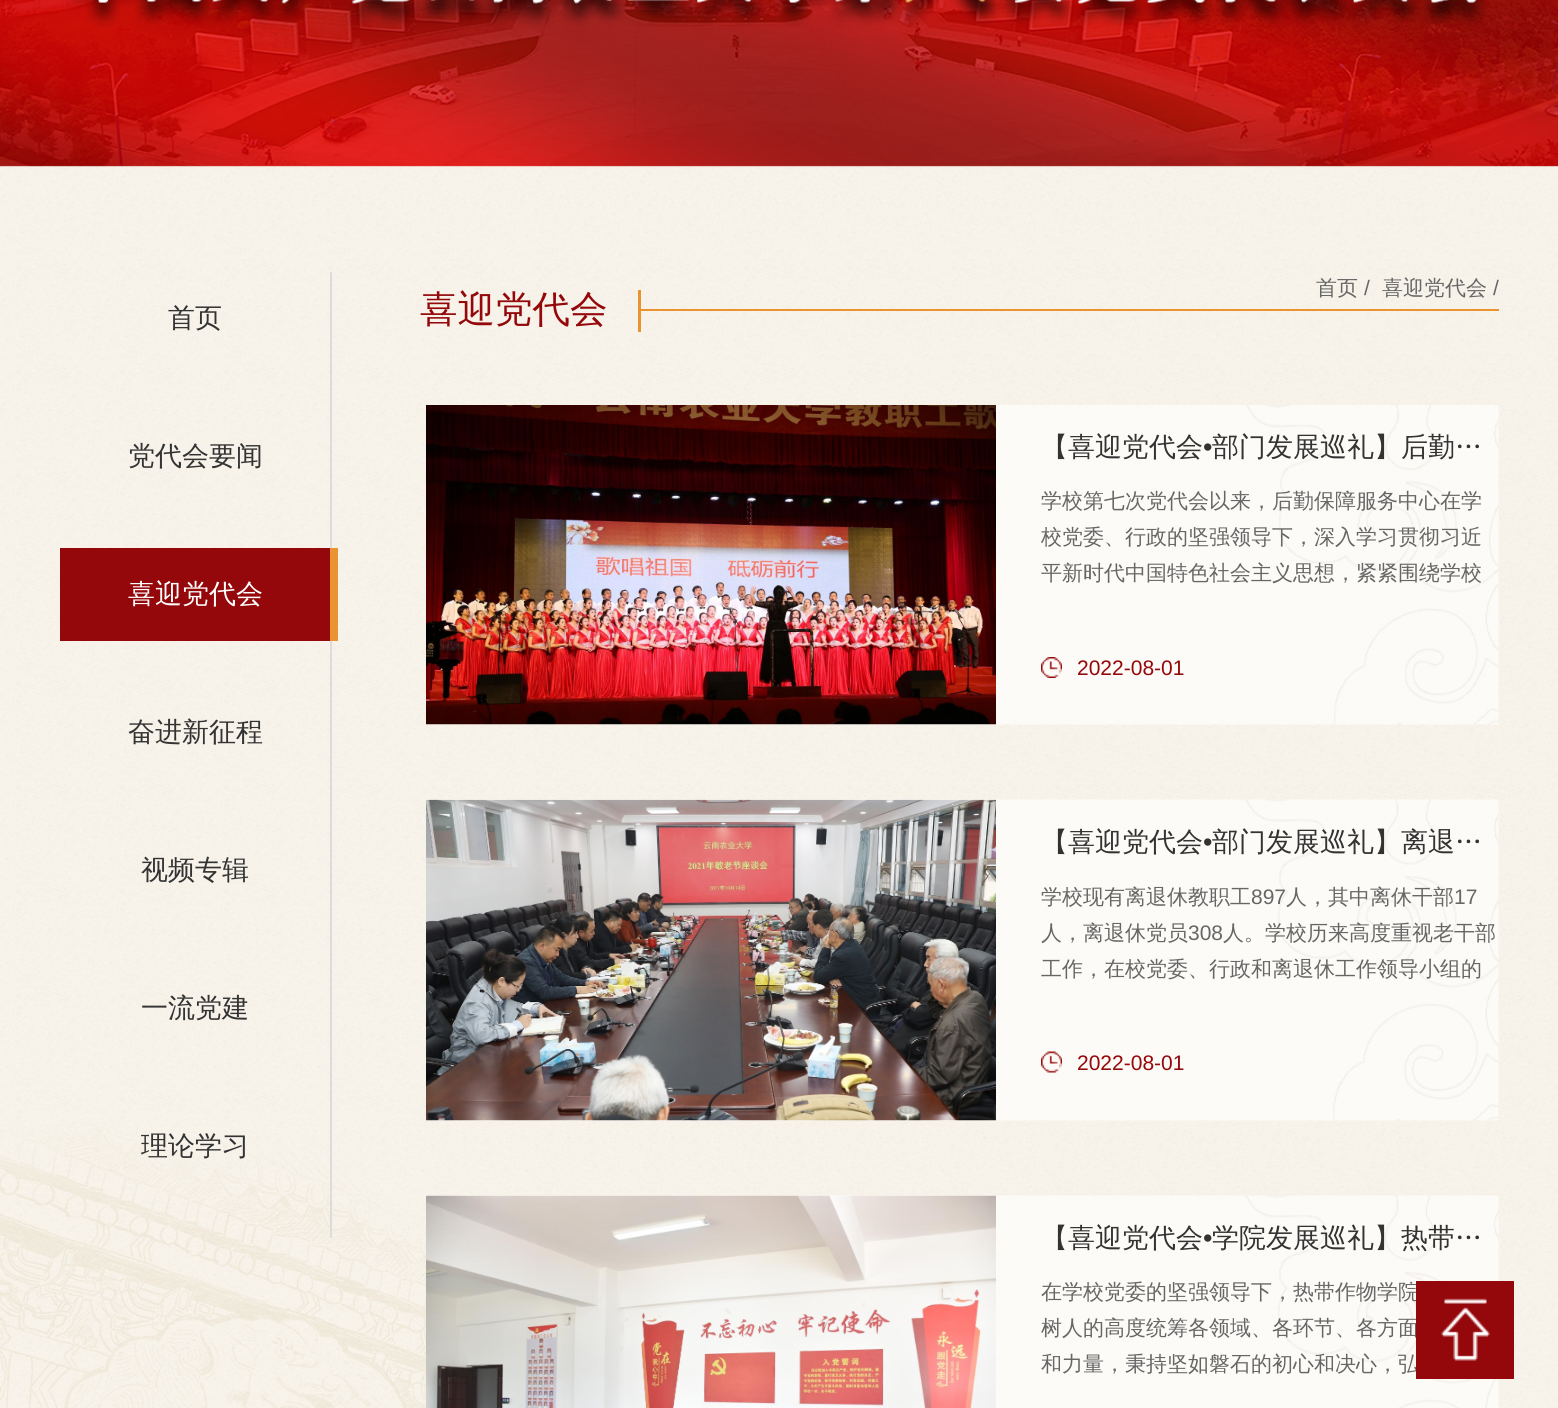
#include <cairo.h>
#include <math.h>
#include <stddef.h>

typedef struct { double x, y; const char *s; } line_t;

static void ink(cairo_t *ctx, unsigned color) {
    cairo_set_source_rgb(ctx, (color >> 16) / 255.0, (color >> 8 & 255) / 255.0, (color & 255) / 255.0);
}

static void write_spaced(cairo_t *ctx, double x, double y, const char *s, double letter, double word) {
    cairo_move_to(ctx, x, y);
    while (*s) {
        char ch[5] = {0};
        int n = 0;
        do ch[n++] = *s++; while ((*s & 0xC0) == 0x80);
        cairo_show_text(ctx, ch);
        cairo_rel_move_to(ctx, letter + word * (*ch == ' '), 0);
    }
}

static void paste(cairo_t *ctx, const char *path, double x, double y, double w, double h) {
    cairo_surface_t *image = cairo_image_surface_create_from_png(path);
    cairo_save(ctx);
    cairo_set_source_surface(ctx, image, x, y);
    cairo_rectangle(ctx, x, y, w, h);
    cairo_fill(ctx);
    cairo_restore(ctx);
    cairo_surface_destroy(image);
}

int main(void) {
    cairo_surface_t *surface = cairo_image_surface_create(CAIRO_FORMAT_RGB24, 1558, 1408);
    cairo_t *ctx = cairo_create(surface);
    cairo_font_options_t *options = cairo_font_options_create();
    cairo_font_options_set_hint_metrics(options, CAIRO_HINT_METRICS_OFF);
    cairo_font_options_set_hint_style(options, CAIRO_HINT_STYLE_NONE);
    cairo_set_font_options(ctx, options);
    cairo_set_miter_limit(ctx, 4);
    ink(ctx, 0xFFFFFF);
    cairo_paint(ctx);
    paste(ctx, "media/1.png", 0, 0, 1558, 167);
    paste(ctx, "media/2.png", 0, 166, 1558, 1242);
    ink(ctx, 0xDCDCDC);
    cairo_rectangle(ctx, 330, 272, 2, 966);
    cairo_fill(ctx);
    cairo_select_font_face(ctx, "WenQuanYi Zen Hei Medium", CAIRO_FONT_SLANT_NORMAL, CAIRO_FONT_WEIGHT_NORMAL);
    cairo_set_font_size(ctx, 27);
    ink(ctx, 0x333333);
    cairo_move_to(ctx, 168, 327);
    cairo_show_text(ctx, "首页");
    cairo_move_to(ctx, 128, 465);
    cairo_show_text(ctx, "党代会要闻");
    ink(ctx, 0x94070A);
    cairo_rectangle(ctx, 60, 548, 270, 93);
    cairo_fill(ctx);
    ink(ctx, 0xE99430);
    cairo_rectangle(ctx, 330, 548, 8, 93);
    cairo_fill(ctx);
    ink(ctx, 0xFFFFFF);
    cairo_move_to(ctx, 128, 603);
    cairo_show_text(ctx, "喜迎党代会");
    ink(ctx, 0x333333);
    {
        static const line_t items[] = {
            {128, 741, "奋进新征程"},
            {141, 879, "视频专辑"},
            {141, 1017, "一流党建"},
            {141, 1155, "理论学习"},
        };
        for (size_t i = 0; i < sizeof items / sizeof *items; i++) {
            cairo_move_to(ctx, items[i].x, items[i].y);
            cairo_show_text(ctx, items[i].s);
        }
    }
    cairo_set_font_size(ctx, 37.5);
    ink(ctx, 0x94070A);
    cairo_move_to(ctx, 420, 322);
    cairo_show_text(ctx, "喜迎党代会");
    ink(ctx, 0xE99430);
    cairo_rectangle(ctx, 638, 290, 3, 42);
    cairo_fill(ctx);
    cairo_set_font_size(ctx, 21);
    ink(ctx, 0x666666);
    cairo_move_to(ctx, 1316, 295);
    cairo_show_text(ctx, "首页");
    cairo_select_font_face(ctx, "Liberation Sans", CAIRO_FONT_SLANT_NORMAL, CAIRO_FONT_WEIGHT_NORMAL);
    cairo_move_to(ctx, 1364, 295);
    cairo_show_text(ctx, "/");
    cairo_select_font_face(ctx, "WenQuanYi Zen Hei Medium", CAIRO_FONT_SLANT_NORMAL, CAIRO_FONT_WEIGHT_NORMAL);
    cairo_move_to(ctx, 1382, 295);
    cairo_show_text(ctx, "喜迎党代会");
    cairo_select_font_face(ctx, "Liberation Sans", CAIRO_FONT_SLANT_NORMAL, CAIRO_FONT_WEIGHT_NORMAL);
    cairo_move_to(ctx, 1493, 295);
    cairo_show_text(ctx, "/");
    ink(ctx, 0xE99430);
    cairo_rectangle(ctx, 641, 309, 858, 2);
    cairo_fill(ctx);
    paste(ctx, "media/3.png", 426, 405, 1073, 320);
    paste(ctx, "media/4.png", 426, 405, 570, 320);
    cairo_select_font_face(ctx, "WenQuanYi Zen Hei Medium", CAIRO_FONT_SLANT_NORMAL, CAIRO_FONT_WEIGHT_NORMAL);
    cairo_set_font_size(ctx, 27);
    ink(ctx, 0x333333);
    cairo_move_to(ctx, 1041, 456);
    cairo_show_text(ctx, "【喜迎党代会");
    cairo_select_font_face(ctx, "Liberation Sans", CAIRO_FONT_SLANT_NORMAL, CAIRO_FONT_WEIGHT_NORMAL);
    cairo_move_to(ctx, 1203, 456);
    cairo_show_text(ctx, "•");
    cairo_select_font_face(ctx, "WenQuanYi Zen Hei Medium", CAIRO_FONT_SLANT_NORMAL, CAIRO_FONT_WEIGHT_NORMAL);
    write_spaced(ctx, 1212, 456, "部门发展巡礼】后勤…", 0, -1);
    cairo_set_font_size(ctx, 21);
    ink(ctx, 0x666666);
    {
        static const line_t items[] = {
            {1041, 508, "学校第七次党代会以来，后勤保障服务中心在学"},
            {1041, 544, "校党委、行政的坚强领导下，深入学习贯彻习近"},
            {1041, 580, "平新时代中国特色社会主义思想，紧紧围绕学校"},
        };
        for (size_t i = 0; i < sizeof items / sizeof *items; i++) {
            cairo_move_to(ctx, items[i].x, items[i].y);
            cairo_show_text(ctx, items[i].s);
        }
    }
    paste(ctx, "media/5.png", 1041, 657, 21, 21);
    cairo_select_font_face(ctx, "Liberation Sans", CAIRO_FONT_SLANT_NORMAL, CAIRO_FONT_WEIGHT_NORMAL);
    ink(ctx, 0x94070A);
    cairo_move_to(ctx, 1077, 675);
    cairo_show_text(ctx, "2022-08-01");
    paste(ctx, "media/6.png", 426, 799, 1073, 322);
    paste(ctx, "media/7.png", 426, 799, 570, 322);
    cairo_select_font_face(ctx, "WenQuanYi Zen Hei Medium", CAIRO_FONT_SLANT_NORMAL, CAIRO_FONT_WEIGHT_NORMAL);
    cairo_set_font_size(ctx, 27);
    ink(ctx, 0x333333);
    cairo_move_to(ctx, 1041, 851);
    cairo_show_text(ctx, "【喜迎党代会");
    cairo_select_font_face(ctx, "Liberation Sans", CAIRO_FONT_SLANT_NORMAL, CAIRO_FONT_WEIGHT_NORMAL);
    cairo_move_to(ctx, 1203, 851);
    cairo_show_text(ctx, "•");
    cairo_select_font_face(ctx, "WenQuanYi Zen Hei Medium", CAIRO_FONT_SLANT_NORMAL, CAIRO_FONT_WEIGHT_NORMAL);
    write_spaced(ctx, 1212, 851, "部门发展巡礼】离退…", 0, -1);
    cairo_set_font_size(ctx, 21);
    ink(ctx, 0x666666);
    cairo_move_to(ctx, 1041, 904);
    cairo_show_text(ctx, "学校现有离退休教职工");
    cairo_select_font_face(ctx, "Liberation Sans", CAIRO_FONT_SLANT_NORMAL, CAIRO_FONT_WEIGHT_NORMAL);
    cairo_move_to(ctx, 1251, 904);
    cairo_show_text(ctx, "897");
    cairo_select_font_face(ctx, "WenQuanYi Zen Hei Medium", CAIRO_FONT_SLANT_NORMAL, CAIRO_FONT_WEIGHT_NORMAL);
    cairo_move_to(ctx, 1286, 904);
    cairo_show_text(ctx, "人，其中离休干部");
    cairo_select_font_face(ctx, "Liberation Sans", CAIRO_FONT_SLANT_NORMAL, CAIRO_FONT_WEIGHT_NORMAL);
    cairo_move_to(ctx, 1454, 904);
    cairo_show_text(ctx, "17");
    cairo_select_font_face(ctx, "WenQuanYi Zen Hei Medium", CAIRO_FONT_SLANT_NORMAL, CAIRO_FONT_WEIGHT_NORMAL);
    cairo_move_to(ctx, 1041, 940);
    cairo_show_text(ctx, "人，离退休党员");
    cairo_select_font_face(ctx, "Liberation Sans", CAIRO_FONT_SLANT_NORMAL, CAIRO_FONT_WEIGHT_NORMAL);
    cairo_move_to(ctx, 1188, 940);
    cairo_show_text(ctx, "308");
    cairo_select_font_face(ctx, "WenQuanYi Zen Hei Medium", CAIRO_FONT_SLANT_NORMAL, CAIRO_FONT_WEIGHT_NORMAL);
    cairo_move_to(ctx, 1223, 940);
    cairo_show_text(ctx, "人。学校历来高度重视老干部");
    cairo_move_to(ctx, 1041, 976);
    cairo_show_text(ctx, "工作，在校党委、行政和离退休工作领导小组的");
    paste(ctx, "media/8.png", 1041, 1051, 21, 22);
    cairo_select_font_face(ctx, "Liberation Sans", CAIRO_FONT_SLANT_NORMAL, CAIRO_FONT_WEIGHT_NORMAL);
    ink(ctx, 0x94070A);
    cairo_move_to(ctx, 1077, 1070);
    cairo_show_text(ctx, "2022-08-01");
    paste(ctx, "media/9.png", 426, 1195, 1073, 213);
    paste(ctx, "media/10.png", 426, 1195, 570, 213);
    cairo_select_font_face(ctx, "WenQuanYi Zen Hei Medium", CAIRO_FONT_SLANT_NORMAL, CAIRO_FONT_WEIGHT_NORMAL);
    cairo_set_font_size(ctx, 27);
    ink(ctx, 0x333333);
    cairo_move_to(ctx, 1041, 1247);
    cairo_show_text(ctx, "【喜迎党代会");
    cairo_select_font_face(ctx, "Liberation Sans", CAIRO_FONT_SLANT_NORMAL, CAIRO_FONT_WEIGHT_NORMAL);
    cairo_move_to(ctx, 1203, 1247);
    cairo_show_text(ctx, "•");
    cairo_select_font_face(ctx, "WenQuanYi Zen Hei Medium", CAIRO_FONT_SLANT_NORMAL, CAIRO_FONT_WEIGHT_NORMAL);
    cairo_move_to(ctx, 1212, 1247);
    cairo_show_text(ctx, "学院发展巡礼】热带…");
    cairo_set_font_size(ctx, 21);
    ink(ctx, 0x666666);
    {
        static const line_t items[] = {
            {1041, 1299, "在学校党委的坚强领导下，热带作物学院"},
            {1041, 1335, "树人的高度统筹各领域、各环节、各方面"},
            {1041, 1371, "和力量，秉持坚如磐石的初心和决心，弘"},
        };
        for (size_t i = 0; i < sizeof items / sizeof *items; i++) {
            cairo_move_to(ctx, items[i].x, items[i].y);
            cairo_show_text(ctx, items[i].s);
        }
    }
    ink(ctx, 0x94070A);
    cairo_rectangle(ctx, 1416, 1281, 98, 98);
    cairo_fill(ctx);
    paste(ctx, "media/11.png", 1441, 1298, 49, 63);
    cairo_surface_write_to_png(surface, "image.png");
    cairo_font_options_destroy(options);
    cairo_destroy(ctx);
    cairo_surface_destroy(surface);
    return 0;
}
